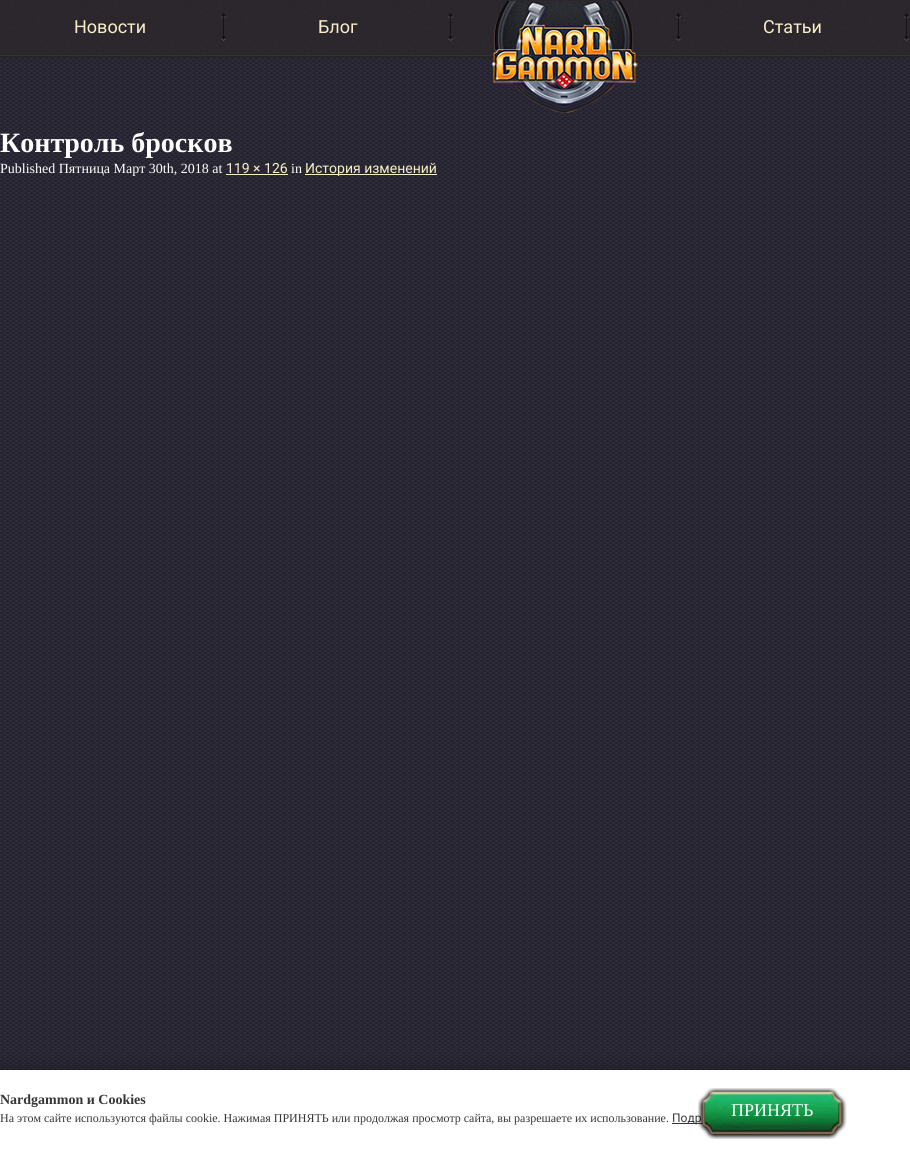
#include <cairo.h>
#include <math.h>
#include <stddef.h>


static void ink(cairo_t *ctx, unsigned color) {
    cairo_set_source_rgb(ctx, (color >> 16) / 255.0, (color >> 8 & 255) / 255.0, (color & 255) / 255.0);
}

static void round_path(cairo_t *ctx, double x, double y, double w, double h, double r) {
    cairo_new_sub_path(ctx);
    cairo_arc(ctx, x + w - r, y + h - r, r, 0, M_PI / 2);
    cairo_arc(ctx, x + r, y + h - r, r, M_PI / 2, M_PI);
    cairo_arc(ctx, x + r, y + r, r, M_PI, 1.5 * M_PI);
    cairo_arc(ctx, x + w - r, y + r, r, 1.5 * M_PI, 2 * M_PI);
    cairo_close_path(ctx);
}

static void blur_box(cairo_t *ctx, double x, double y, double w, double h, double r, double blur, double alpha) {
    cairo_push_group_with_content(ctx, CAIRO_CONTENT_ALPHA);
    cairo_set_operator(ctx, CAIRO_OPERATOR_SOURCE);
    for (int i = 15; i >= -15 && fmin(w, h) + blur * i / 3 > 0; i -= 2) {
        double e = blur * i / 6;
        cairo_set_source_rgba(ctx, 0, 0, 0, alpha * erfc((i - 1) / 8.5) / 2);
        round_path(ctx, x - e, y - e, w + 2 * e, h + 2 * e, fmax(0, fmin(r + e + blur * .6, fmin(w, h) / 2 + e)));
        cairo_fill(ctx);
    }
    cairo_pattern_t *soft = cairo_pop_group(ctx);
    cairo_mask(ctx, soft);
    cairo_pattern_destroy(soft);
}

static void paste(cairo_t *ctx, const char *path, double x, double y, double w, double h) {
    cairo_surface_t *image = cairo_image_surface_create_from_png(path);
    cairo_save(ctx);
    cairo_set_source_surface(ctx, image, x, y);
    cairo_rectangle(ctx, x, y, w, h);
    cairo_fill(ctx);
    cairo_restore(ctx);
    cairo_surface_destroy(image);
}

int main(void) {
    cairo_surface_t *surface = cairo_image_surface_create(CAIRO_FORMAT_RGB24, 910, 1149);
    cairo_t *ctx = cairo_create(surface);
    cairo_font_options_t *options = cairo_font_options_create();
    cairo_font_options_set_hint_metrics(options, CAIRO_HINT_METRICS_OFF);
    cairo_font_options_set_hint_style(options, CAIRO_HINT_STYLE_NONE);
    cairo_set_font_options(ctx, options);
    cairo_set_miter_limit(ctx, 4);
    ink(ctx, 0xFFFFFF);
    cairo_paint(ctx);
    paste(ctx, "media/1.png", 0, 58, 910, 1012);
    paste(ctx, "media/2.png", 0, 0, 910, 58);
    cairo_select_font_face(ctx, "Roboto", CAIRO_FONT_SLANT_NORMAL, CAIRO_FONT_WEIGHT_NORMAL);
    cairo_set_font_size(ctx, 18);
    ink(ctx, 0xF9F0C9);
    cairo_move_to(ctx, 74, 33);
    cairo_show_text(ctx, "Новости");
    paste(ctx, "media/3.png", 221, 13, 5, 28);
    cairo_move_to(ctx, 318, 33);
    cairo_show_text(ctx, "Блог");
    paste(ctx, "media/4.png", 448, 13, 5, 28);
    paste(ctx, "media/5.png", 492, 1, 146, 113);
    paste(ctx, "media/6.png", 676, 13, 5, 28);
    cairo_move_to(ctx, 763, 33);
    cairo_show_text(ctx, "Статьи");
    paste(ctx, "media/7.png", 904, 13, 5, 28);
    cairo_select_font_face(ctx, "Liberation Serif", CAIRO_FONT_SLANT_NORMAL, CAIRO_FONT_WEIGHT_BOLD);
    cairo_set_font_size(ctx, 28);
    ink(ctx, 0xFFFFFF);
    cairo_move_to(ctx, 0, 152);
    cairo_show_text(ctx, "Контроль бросков");
    cairo_select_font_face(ctx, "Liberation Serif", CAIRO_FONT_SLANT_NORMAL, CAIRO_FONT_WEIGHT_NORMAL);
    cairo_set_font_size(ctx, 14);
    cairo_move_to(ctx, 0, 173);
    cairo_show_text(ctx, "Published Пятница Март 30th, 2018 at");
    cairo_select_font_face(ctx, "Roboto", CAIRO_FONT_SLANT_NORMAL, CAIRO_FONT_WEIGHT_NORMAL);
    ink(ctx, 0xF9F0C9);
    cairo_move_to(ctx, 226, 173);
    cairo_show_text(ctx, "119 × 126");
    cairo_rectangle(ctx, 226, 174, 62, 1);
    cairo_fill(ctx);
    cairo_select_font_face(ctx, "Liberation Serif", CAIRO_FONT_SLANT_NORMAL, CAIRO_FONT_WEIGHT_NORMAL);
    ink(ctx, 0xFFFFFF);
    cairo_move_to(ctx, 291, 173);
    cairo_show_text(ctx, "in");
    ink(ctx, 0xF9F0C9);
    cairo_rectangle(ctx, 305, 174, 132, 1);
    cairo_fill(ctx);
    cairo_select_font_face(ctx, "Roboto", CAIRO_FONT_SLANT_NORMAL, CAIRO_FONT_WEIGHT_NORMAL);
    cairo_move_to(ctx, 305, 173);
    cairo_show_text(ctx, "История изменений");
    ink(ctx, 0x000000);
    blur_box(ctx, 0, 1070, 910, 79, 0, 10, 0.3);
    ink(ctx, 0xFFFFFF);
    cairo_rectangle(ctx, 0, 1070, 910, 79);
    cairo_fill(ctx);
    cairo_select_font_face(ctx, "Liberation Serif", CAIRO_FONT_SLANT_NORMAL, CAIRO_FONT_WEIGHT_BOLD);
    ink(ctx, 0x363636);
    cairo_move_to(ctx, 0, 1104);
    cairo_show_text(ctx, "Nardgammon и Cookies");
    cairo_rectangle(ctx, 672, 1123, 32, 1);
    cairo_fill(ctx);
    cairo_select_font_face(ctx, "Roboto", CAIRO_FONT_SLANT_NORMAL, CAIRO_FONT_WEIGHT_NORMAL);
    cairo_set_font_size(ctx, 12);
    cairo_move_to(ctx, 672, 1122);
    cairo_show_text(ctx, "Подр");
    paste(ctx, "media/8.png", 698, 1088, 149, 51);
    paste(ctx, "media/9.png", 698, 1088, 149, 51);
    cairo_select_font_face(ctx, "Liberation Serif", CAIRO_FONT_SLANT_NORMAL, CAIRO_FONT_WEIGHT_NORMAL);
    cairo_set_font_size(ctx, 18);
    ink(ctx, 0xFFFFFF);
    cairo_move_to(ctx, 731, 1116);
    cairo_show_text(ctx, "ПРИНЯТЬ");
    cairo_set_font_size(ctx, 12);
    ink(ctx, 0x363636);
    cairo_move_to(ctx, 0, 1122);
    cairo_show_text(ctx, "На этом сайте используются файлы cookie. Нажимая ПРИНЯТЬ или продолжая просмотр сайта, вы разрешаете их использование.");
    cairo_surface_write_to_png(surface, "image.png");
    cairo_font_options_destroy(options);
    cairo_destroy(ctx);
    cairo_surface_destroy(surface);
    return 0;
}
